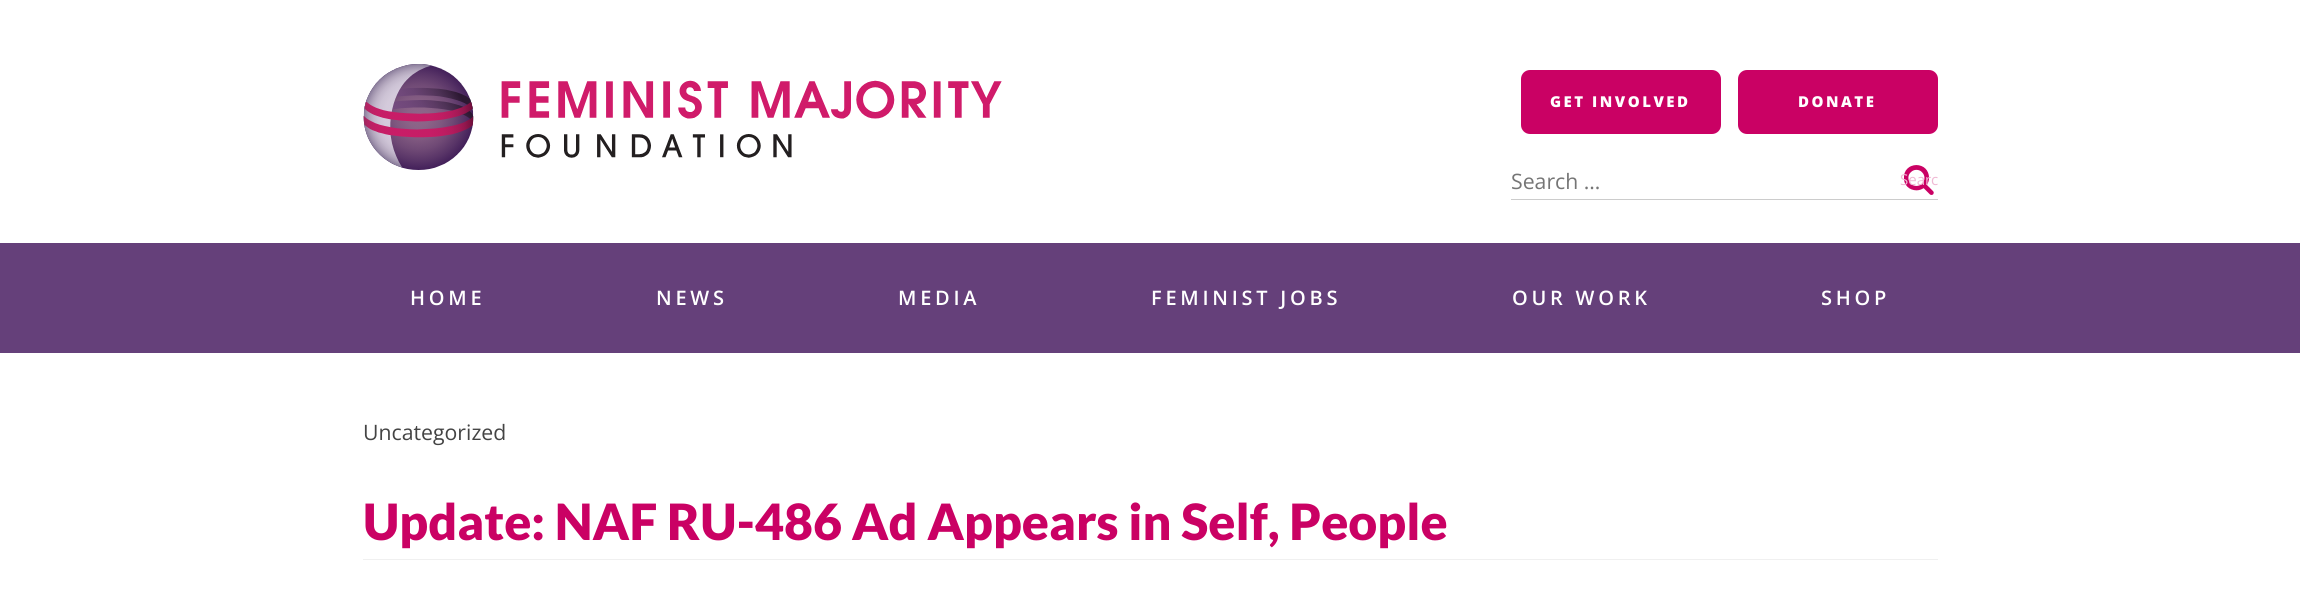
#include <cairo.h>
#include <math.h>
#include <stddef.h>

typedef struct { double x, y; const char *s; } line_t;

static void ink(cairo_t *ctx, unsigned color) {
    cairo_set_source_rgb(ctx, (color >> 16) / 255.0, (color >> 8 & 255) / 255.0, (color & 255) / 255.0);
}

static void write_spaced(cairo_t *ctx, double x, double y, const char *s, double letter, double word) {
    cairo_move_to(ctx, x, y);
    while (*s) {
        char ch[5] = {0};
        int n = 0;
        do ch[n++] = *s++; while ((*s & 0xC0) == 0x80);
        cairo_show_text(ctx, ch);
        cairo_rel_move_to(ctx, letter + word * (*ch == ' '), 0);
    }
}

static void round_path(cairo_t *ctx, double x, double y, double w, double h, double r) {
    cairo_new_sub_path(ctx);
    cairo_arc(ctx, x + w - r, y + h - r, r, 0, M_PI / 2);
    cairo_arc(ctx, x + r, y + h - r, r, M_PI / 2, M_PI);
    cairo_arc(ctx, x + r, y + r, r, M_PI, 1.5 * M_PI);
    cairo_arc(ctx, x + w - r, y + r, r, 1.5 * M_PI, 2 * M_PI);
    cairo_close_path(ctx);
}

static void paste(cairo_t *ctx, const char *path, double x, double y, double w, double h) {
    cairo_surface_t *image = cairo_image_surface_create_from_png(path);
    cairo_save(ctx);
    cairo_set_source_surface(ctx, image, x, y);
    cairo_rectangle(ctx, x, y, w, h);
    cairo_fill(ctx);
    cairo_restore(ctx);
    cairo_surface_destroy(image);
}

int main(void) {
    cairo_surface_t *surface = cairo_image_surface_create(CAIRO_FORMAT_RGB24, 2300, 604);
    cairo_t *ctx = cairo_create(surface);
    cairo_font_options_t *options = cairo_font_options_create();
    cairo_font_options_set_hint_metrics(options, CAIRO_HINT_METRICS_OFF);
    cairo_font_options_set_hint_style(options, CAIRO_HINT_STYLE_NONE);
    cairo_set_font_options(ctx, options);
    cairo_set_miter_limit(ctx, 4);
    ink(ctx, 0xFFFFFF);
    cairo_paint(ctx);
    paste(ctx, "media/1.png", 363, 64, 639, 106);
    ink(ctx, 0xCA0164);
    round_path(ctx, 1521, 70, 200, 64, 9);
    cairo_fill(ctx);
    cairo_select_font_face(ctx, "Open Sans ExtraBold", CAIRO_FONT_SLANT_NORMAL, CAIRO_FONT_WEIGHT_NORMAL);
    cairo_set_font_size(ctx, 15);
    ink(ctx, 0xFFFFFF);
    write_spaced(ctx, 1550, 107, "GET INVOLVED", 2.5, 0);
    ink(ctx, 0xCA0164);
    round_path(ctx, 1738, 70, 200, 64, 9);
    cairo_fill(ctx);
    ink(ctx, 0xFFFFFF);
    write_spaced(ctx, 1798, 107, "DONATE", 2.5, 0);
    ink(ctx, 0xCCCCCC);
    cairo_rectangle(ctx, 1511, 199, 427, 1);
    cairo_fill(ctx);
    cairo_select_font_face(ctx, "Open Sans", CAIRO_FONT_SLANT_NORMAL, CAIRO_FONT_WEIGHT_NORMAL);
    cairo_set_font_size(ctx, 21.25);
    ink(ctx, 0x757575);
    cairo_move_to(ctx, 1511, 189);
    cairo_show_text(ctx, "Search …");
    paste(ctx, "media/2.png", 1904, 165, 30, 30);
    cairo_set_font_size(ctx, 15);
    ink(ctx, 0xF0B9D4);
    cairo_move_to(ctx, 1900, 185);
    cairo_show_text(ctx, "Searc");
    ink(ctx, 0x65407A);
    cairo_rectangle(ctx, 0, 243, 2300, 110);
    cairo_fill(ctx);
    cairo_select_font_face(ctx, "Open Sans SemiBold", CAIRO_FONT_SLANT_NORMAL, CAIRO_FONT_WEIGHT_NORMAL);
    cairo_set_font_size(ctx, 20);
    ink(ctx, 0xFFFFFF);
    {
        static const line_t items[] = {
            {410, 305, "HOME"},
            {656, 305, "NEWS"},
            {898, 305, "MEDIA"},
            {1151, 305, "FEMINIST JOBS"},
            {1512, 305, "OUR WORK"},
            {1821, 305, "SHOP"},
        };
        for (size_t i = 0; i < sizeof items / sizeof *items; i++) {
            write_spaced(ctx, items[i].x, items[i].y, items[i].s, 3.75, 0);
        }
    }
    cairo_select_font_face(ctx, "Open Sans", CAIRO_FONT_SLANT_NORMAL, CAIRO_FONT_WEIGHT_NORMAL);
    cairo_set_font_size(ctx, 21.25);
    ink(ctx, 0x444444);
    cairo_move_to(ctx, 363, 440);
    cairo_show_text(ctx, "Uncategorized");
    ink(ctx, 0xF0F0F0);
    cairo_rectangle(ctx, 363, 559, 1575, 1);
    cairo_fill(ctx);
    cairo_select_font_face(ctx, "Lato Black", CAIRO_FONT_SLANT_NORMAL, CAIRO_FONT_WEIGHT_NORMAL);
    cairo_set_font_size(ctx, 50);
    ink(ctx, 0xCA0164);
    cairo_move_to(ctx, 363, 540);
    cairo_show_text(ctx, "Update: NAF RU-486 Ad Appears in Self, People");
    cairo_surface_write_to_png(surface, "image.png");
    cairo_font_options_destroy(options);
    cairo_destroy(ctx);
    cairo_surface_destroy(surface);
    return 0;
}
